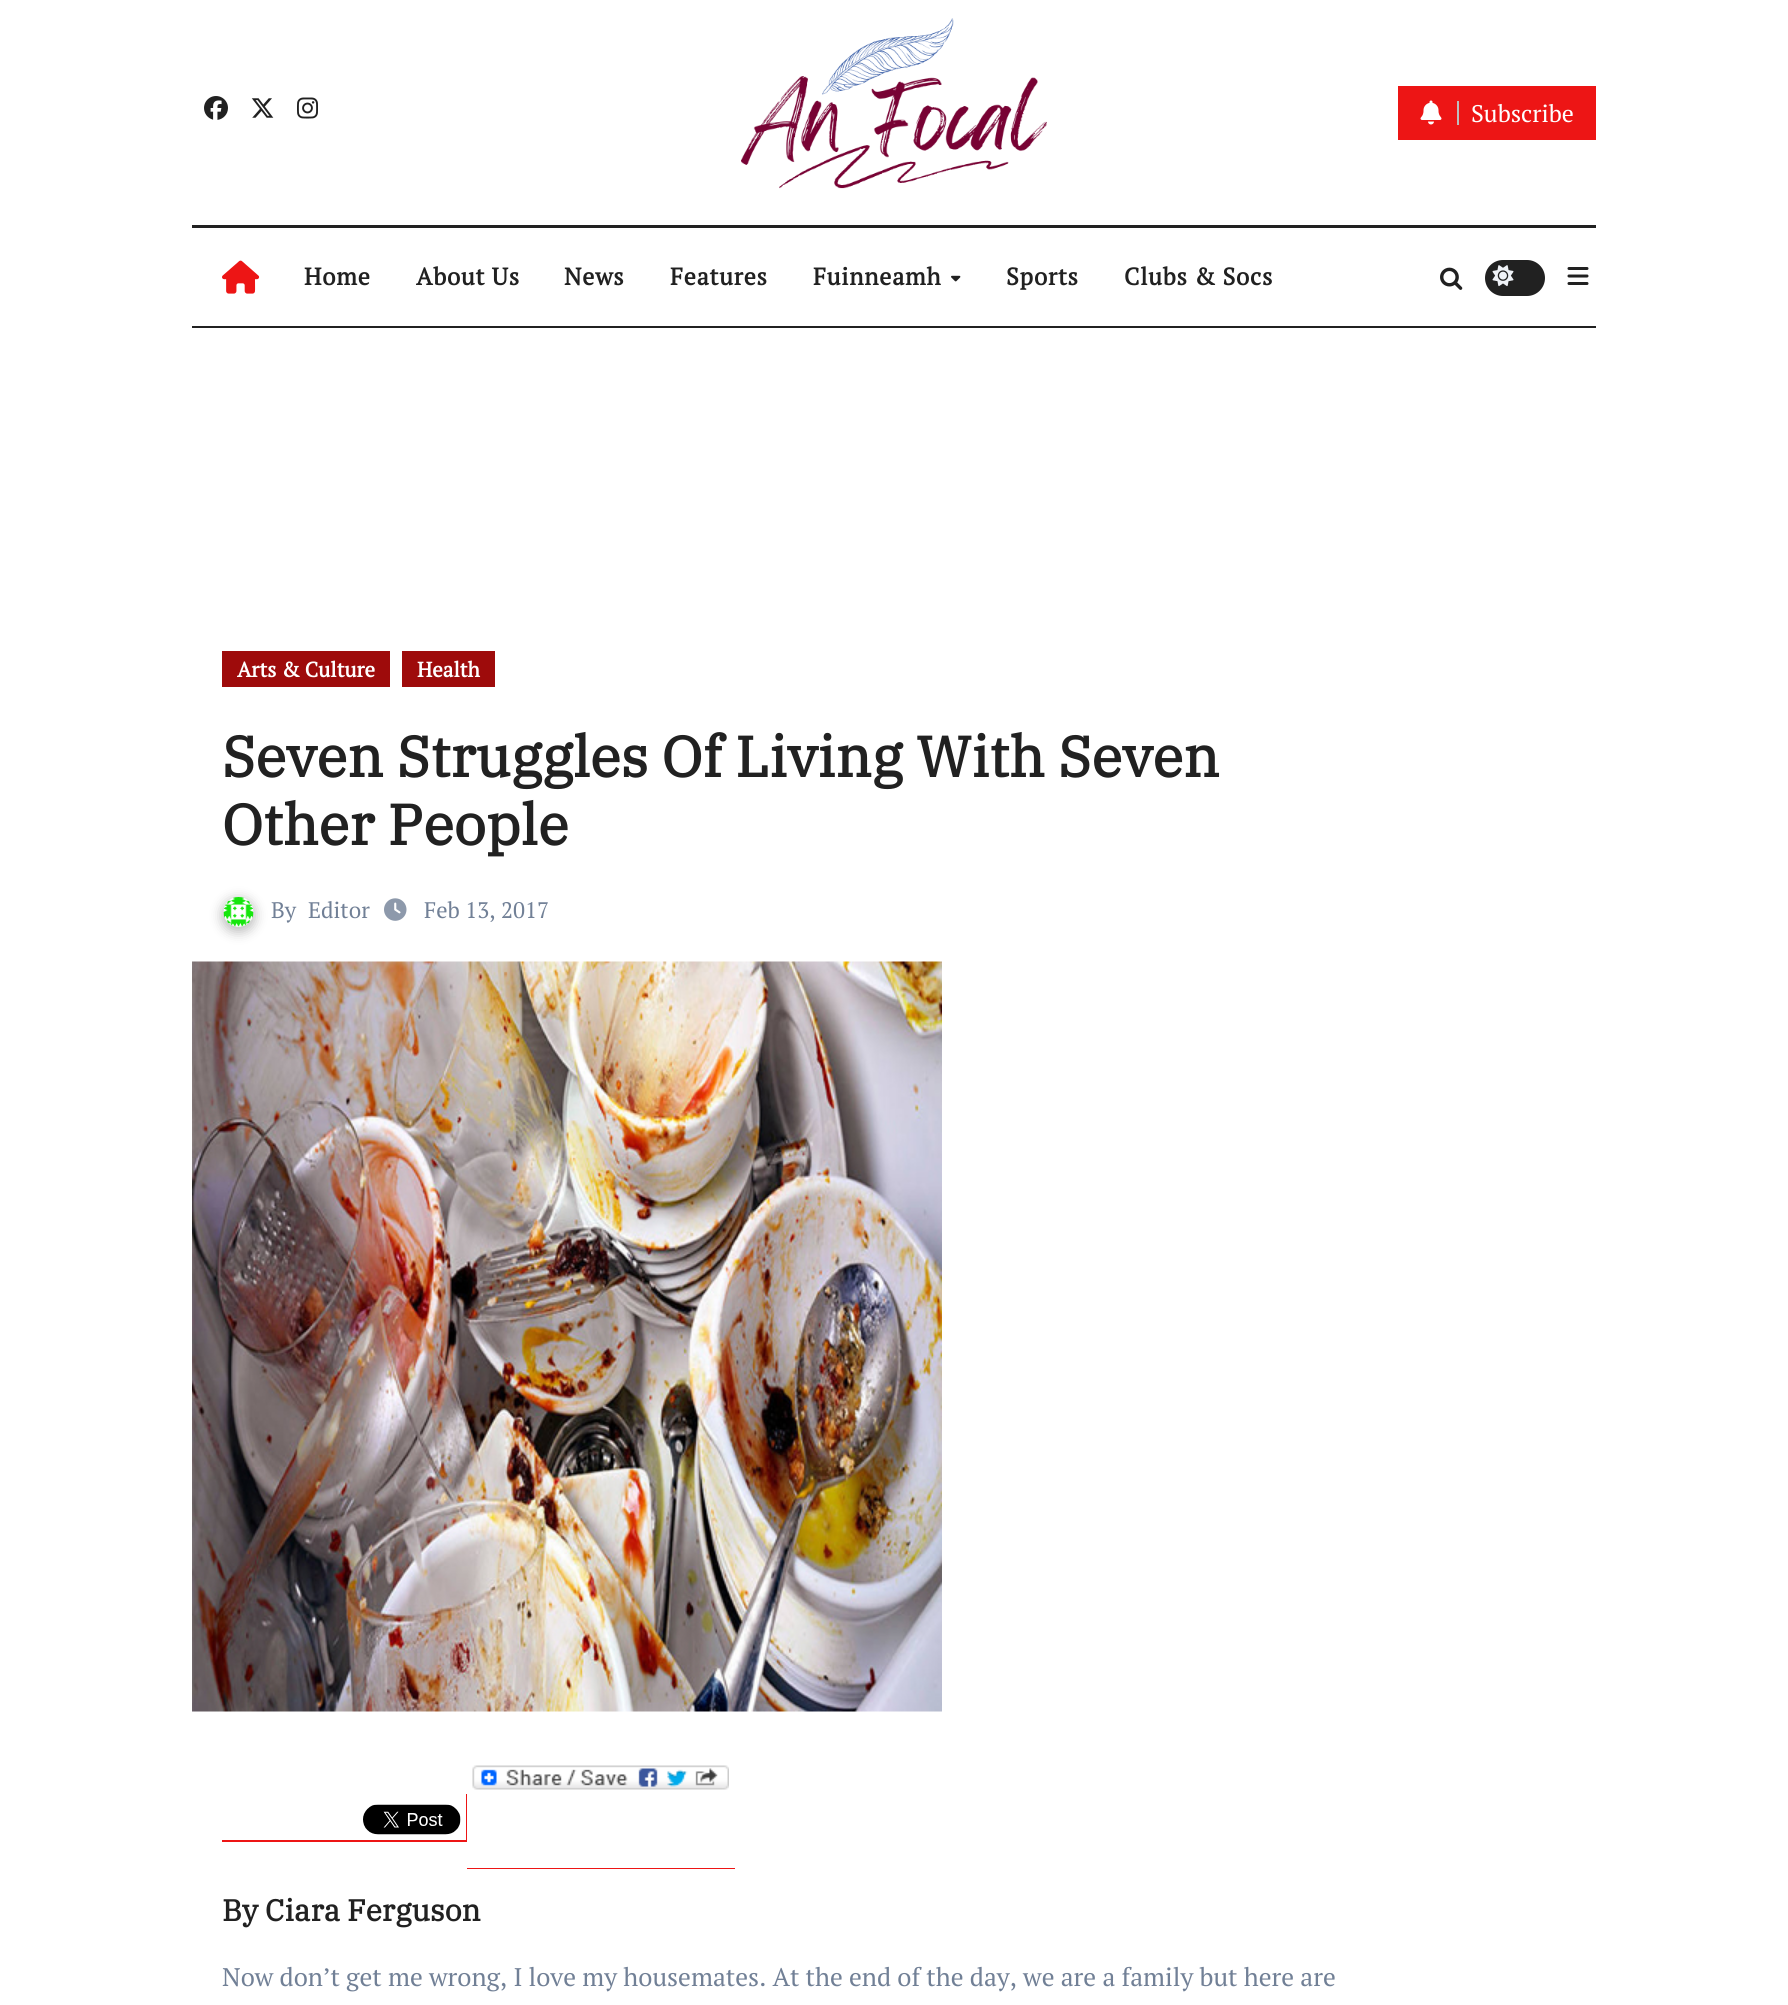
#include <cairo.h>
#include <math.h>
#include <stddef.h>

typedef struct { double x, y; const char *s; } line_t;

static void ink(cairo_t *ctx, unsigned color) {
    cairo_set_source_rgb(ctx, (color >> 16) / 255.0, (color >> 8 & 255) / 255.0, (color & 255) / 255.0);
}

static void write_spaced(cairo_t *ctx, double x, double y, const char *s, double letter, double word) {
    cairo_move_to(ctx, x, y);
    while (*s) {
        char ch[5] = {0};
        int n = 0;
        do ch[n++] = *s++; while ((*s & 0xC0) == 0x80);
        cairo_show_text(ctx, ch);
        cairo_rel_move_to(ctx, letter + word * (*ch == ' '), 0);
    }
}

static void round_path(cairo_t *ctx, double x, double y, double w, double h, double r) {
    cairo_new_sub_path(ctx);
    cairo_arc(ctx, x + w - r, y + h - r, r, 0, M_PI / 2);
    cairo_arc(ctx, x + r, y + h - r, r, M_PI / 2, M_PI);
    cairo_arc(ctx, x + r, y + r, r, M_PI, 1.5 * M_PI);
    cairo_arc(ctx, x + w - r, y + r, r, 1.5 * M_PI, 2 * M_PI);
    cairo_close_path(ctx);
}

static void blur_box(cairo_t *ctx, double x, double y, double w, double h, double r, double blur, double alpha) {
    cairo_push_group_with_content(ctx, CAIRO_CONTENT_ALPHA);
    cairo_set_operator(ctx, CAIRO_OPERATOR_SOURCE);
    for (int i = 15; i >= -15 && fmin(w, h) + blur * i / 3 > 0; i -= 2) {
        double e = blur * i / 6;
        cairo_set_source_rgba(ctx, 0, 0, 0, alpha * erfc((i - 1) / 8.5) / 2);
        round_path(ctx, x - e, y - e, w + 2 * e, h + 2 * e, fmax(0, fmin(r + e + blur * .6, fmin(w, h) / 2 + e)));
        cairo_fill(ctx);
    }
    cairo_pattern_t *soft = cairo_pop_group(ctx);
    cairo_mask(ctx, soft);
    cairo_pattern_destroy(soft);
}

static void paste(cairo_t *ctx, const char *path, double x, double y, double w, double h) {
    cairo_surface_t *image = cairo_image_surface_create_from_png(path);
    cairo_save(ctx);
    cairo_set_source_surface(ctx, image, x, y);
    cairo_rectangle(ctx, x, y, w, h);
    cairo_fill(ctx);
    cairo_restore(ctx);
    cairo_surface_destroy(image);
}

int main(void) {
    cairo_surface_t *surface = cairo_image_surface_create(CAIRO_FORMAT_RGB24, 1788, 2005);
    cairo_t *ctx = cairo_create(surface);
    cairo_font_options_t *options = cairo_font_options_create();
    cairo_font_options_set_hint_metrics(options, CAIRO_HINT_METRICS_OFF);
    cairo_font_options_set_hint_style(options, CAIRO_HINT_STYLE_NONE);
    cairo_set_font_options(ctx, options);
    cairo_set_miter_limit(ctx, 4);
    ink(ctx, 0xFFFFFF);
    cairo_paint(ctx);
    paste(ctx, "media/1.png", 204, 96, 24, 24);
    paste(ctx, "media/2.png", 251, 98, 23, 20);
    paste(ctx, "media/3.png", 297, 97, 21, 22);
    paste(ctx, "media/4.png", 741, 18, 306, 171);
    ink(ctx, 0xED1515);
    cairo_rectangle(ctx, 1398, 86, 198, 54);
    cairo_fill(ctx);
    paste(ctx, "media/5.png", 1420, 100, 22, 25);
    ink(ctx, 0xBDBDBD);
    cairo_rectangle(ctx, 1457, 101, 2, 24);
    cairo_fill(ctx);
    cairo_select_font_face(ctx, "PT Serif", CAIRO_FONT_SLANT_NORMAL, CAIRO_FONT_WEIGHT_NORMAL);
    cairo_set_font_size(ctx, 24);
    ink(ctx, 0xFFFFFF);
    cairo_move_to(ctx, 1471, 122);
    cairo_show_text(ctx, "Subscribe");
    ink(ctx, 0x212121);
    cairo_rectangle(ctx, 192, 225, 1404, 3);
    cairo_fill(ctx);
    cairo_rectangle(ctx, 192, 326, 1404, 2);
    cairo_fill(ctx);
    paste(ctx, "media/6.png", 222, 260, 38, 34);
    cairo_select_font_face(ctx, "PT Serif", CAIRO_FONT_SLANT_NORMAL, CAIRO_FONT_WEIGHT_BOLD);
    {
        static const line_t items[] = {
            {304, 285, "Home"},
            {416, 285, "About Us"},
            {564, 285, "News"},
            {670, 285, "Features"},
            {813, 285, "Fuinneamh"},
        };
        for (size_t i = 0; i < sizeof items / sizeof *items; i++) {
            write_spaced(ctx, items[i].x, items[i].y, items[i].s, 0.75, 0);
        }
    }
    paste(ctx, "media/7.png", 951, 275, 10, 7);
    write_spaced(ctx, 1006, 285, "Sports", 0.75, 0);
    write_spaced(ctx, 1124, 285, "Clubs & Socs", 0.75, 0);
    paste(ctx, "media/8.png", 1440, 267, 23, 23);
    round_path(ctx, 1485, 260, 60, 36, 18);
    cairo_fill(ctx);
    paste(ctx, "media/9.png", 1492, 265, 22, 22);
    paste(ctx, "media/10.png", 1567, 267, 22, 18);
    ink(ctx, 0x9E0B0B);
    cairo_rectangle(ctx, 222, 651, 168, 36);
    cairo_fill(ctx);
    cairo_set_font_size(ctx, 21);
    ink(ctx, 0xFFFFFF);
    cairo_move_to(ctx, 237, 677);
    cairo_show_text(ctx, "Arts & Culture");
    ink(ctx, 0x9E0B0B);
    cairo_rectangle(ctx, 402, 651, 93, 36);
    cairo_fill(ctx);
    ink(ctx, 0xFFFFFF);
    cairo_move_to(ctx, 417, 677);
    cairo_show_text(ctx, "Health");
    cairo_select_font_face(ctx, "IBM Plex Serif", CAIRO_FONT_SLANT_NORMAL, CAIRO_FONT_WEIGHT_BOLD);
    cairo_set_font_size(ctx, 57);
    ink(ctx, 0x212121);
    cairo_move_to(ctx, 222, 777);
    cairo_show_text(ctx, "Seven Struggles Of Living With Seven");
    cairo_move_to(ctx, 222, 845);
    cairo_show_text(ctx, "Other People");
    ink(ctx, 0x212121);
    blur_box(ctx, 222, 899, 33, 33, 16.5, 6, 0.3);
    paste(ctx, "media/11.png", 223, 897, 31, 30);
    cairo_select_font_face(ctx, "PT Serif", CAIRO_FONT_SLANT_NORMAL, CAIRO_FONT_WEIGHT_NORMAL);
    cairo_set_font_size(ctx, 22.5);
    ink(ctx, 0x718096);
    cairo_move_to(ctx, 271, 918);
    cairo_show_text(ctx, "By");
    cairo_move_to(ctx, 308, 918);
    cairo_show_text(ctx, "Editor");
    paste(ctx, "media/12.png", 384, 898, 23, 23);
    cairo_move_to(ctx, 424, 918);
    cairo_show_text(ctx, "Feb 13, 2017");
    paste(ctx, "media/13.png", 192, 961, 750, 751);
    ink(ctx, 0xED1515);
    cairo_rectangle(ctx, 222, 1840, 135, 2);
    cairo_fill(ctx);
    cairo_new_path(ctx);
    cairo_move_to(ctx, 357, 1840);
    cairo_line_to(ctx, 357, 1842);
    cairo_line_to(ctx, 467, 1842);
    cairo_line_to(ctx, 467, 1794);
    cairo_line_to(ctx, 466, 1794);
    cairo_line_to(ctx, 466, 1840);
    cairo_close_path(ctx);
    cairo_fill(ctx);
    paste(ctx, "media/14.png", 363, 1804, 98, 31);
    cairo_rectangle(ctx, 467, 1868, 268, 1);
    cairo_fill(ctx);
    paste(ctx, "media/15.png", 472, 1765, 257, 25);
    cairo_select_font_face(ctx, "IBM Plex Serif", CAIRO_FONT_SLANT_NORMAL, CAIRO_FONT_WEIGHT_BOLD);
    cairo_set_font_size(ctx, 30);
    ink(ctx, 0x212121);
    cairo_move_to(ctx, 222, 1921);
    cairo_show_text(ctx, "By Ciara Ferguson");
    cairo_select_font_face(ctx, "PT Serif", CAIRO_FONT_SLANT_NORMAL, CAIRO_FONT_WEIGHT_NORMAL);
    cairo_set_font_size(ctx, 25.5);
    ink(ctx, 0x718096);
    cairo_move_to(ctx, 222, 1986);
    cairo_show_text(ctx, "Now don’t get me wrong, I love my housemates. At the end of the day, we are a family but here are");
    cairo_surface_write_to_png(surface, "image.png");
    cairo_font_options_destroy(options);
    cairo_destroy(ctx);
    cairo_surface_destroy(surface);
    return 0;
}
